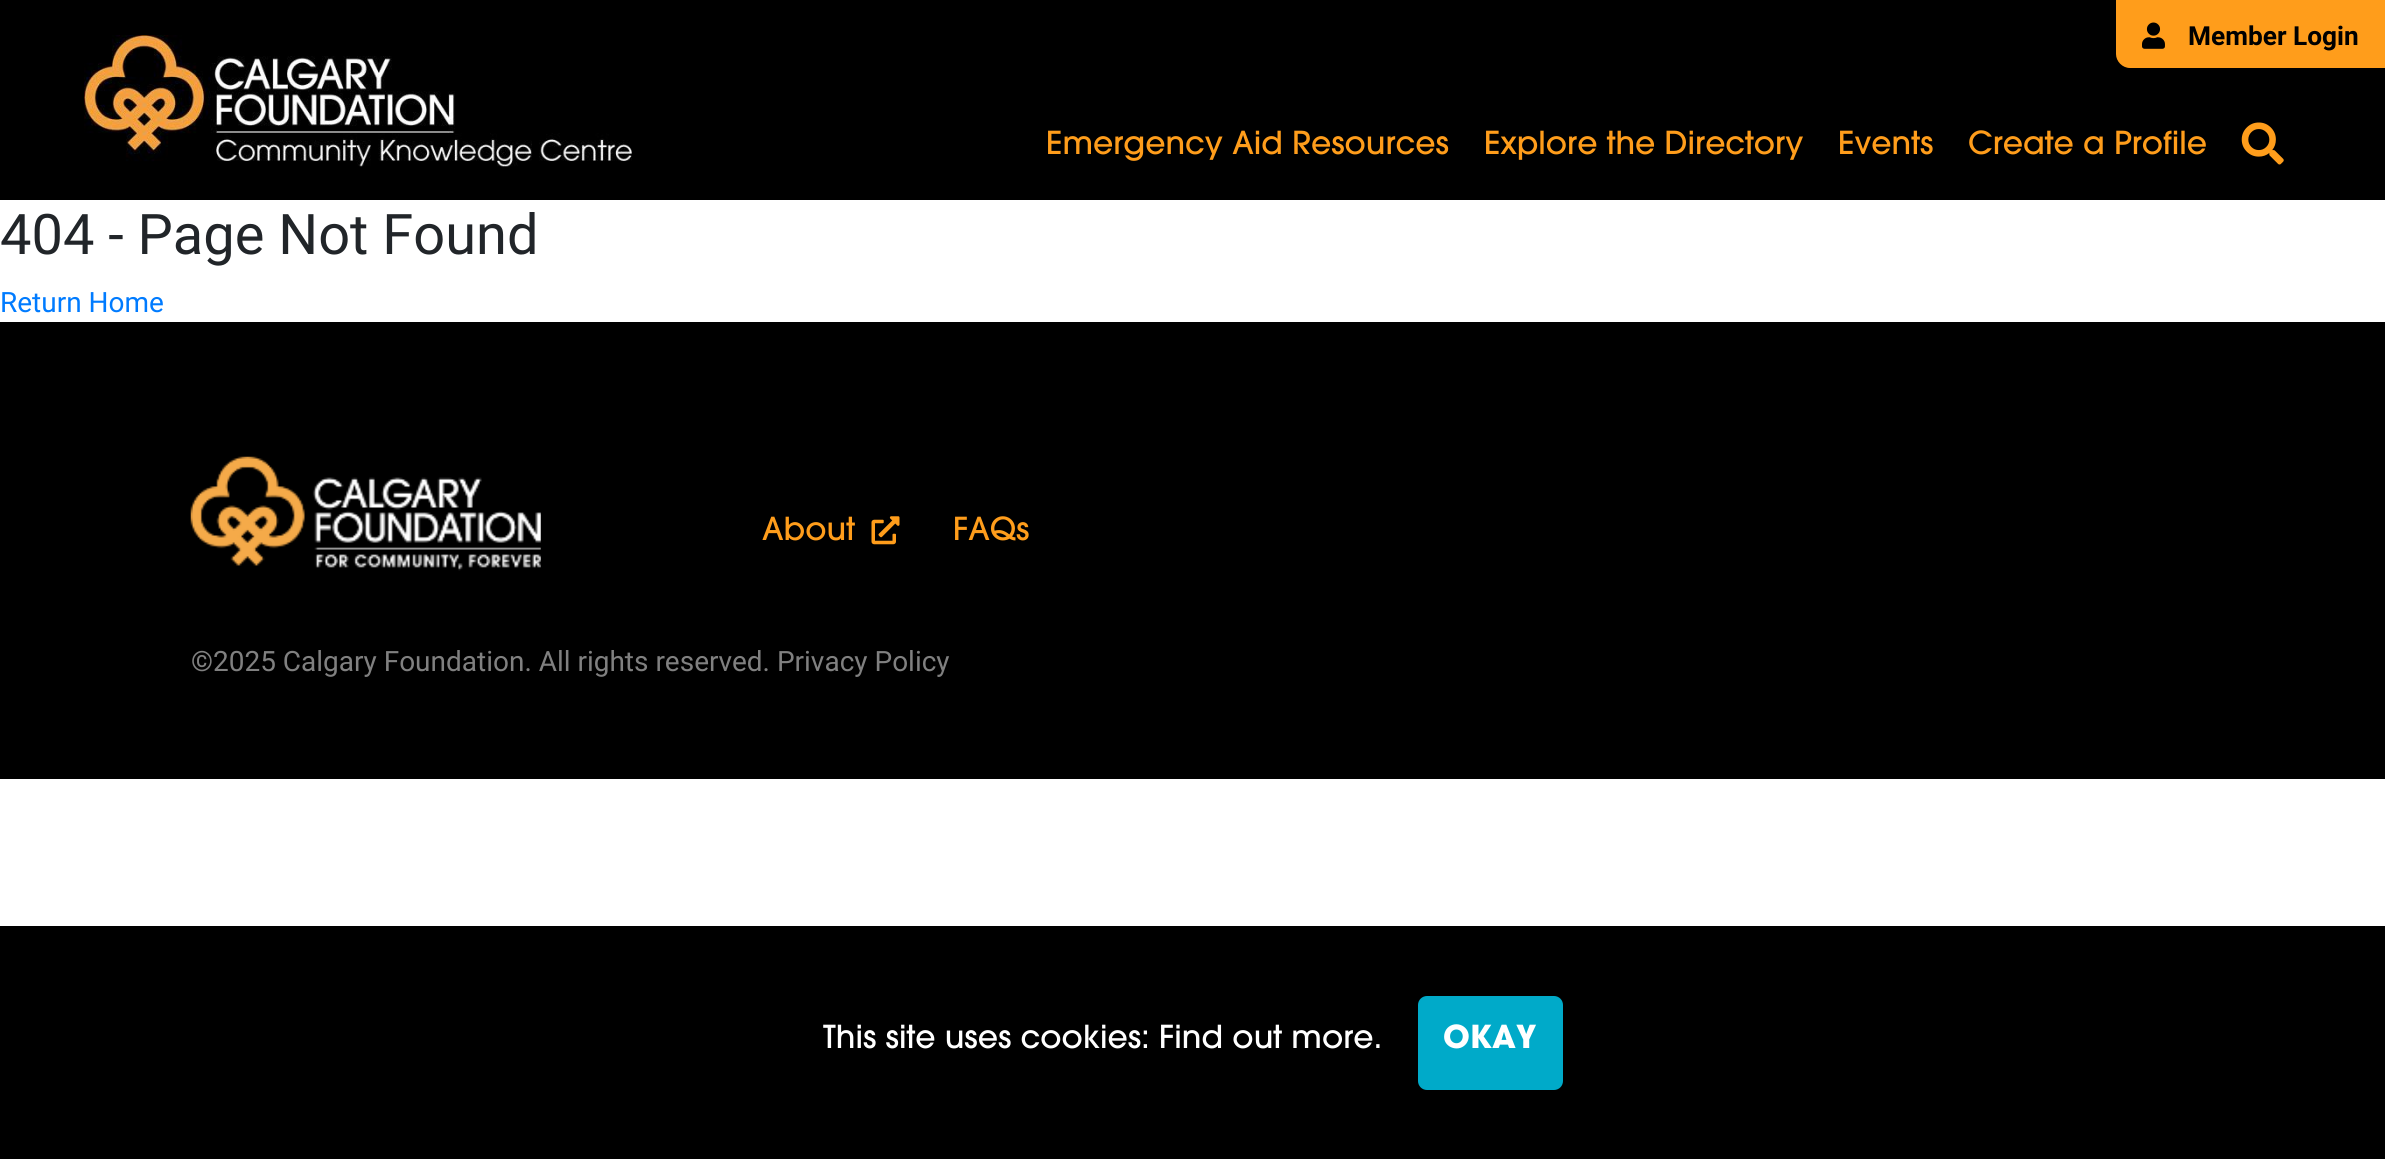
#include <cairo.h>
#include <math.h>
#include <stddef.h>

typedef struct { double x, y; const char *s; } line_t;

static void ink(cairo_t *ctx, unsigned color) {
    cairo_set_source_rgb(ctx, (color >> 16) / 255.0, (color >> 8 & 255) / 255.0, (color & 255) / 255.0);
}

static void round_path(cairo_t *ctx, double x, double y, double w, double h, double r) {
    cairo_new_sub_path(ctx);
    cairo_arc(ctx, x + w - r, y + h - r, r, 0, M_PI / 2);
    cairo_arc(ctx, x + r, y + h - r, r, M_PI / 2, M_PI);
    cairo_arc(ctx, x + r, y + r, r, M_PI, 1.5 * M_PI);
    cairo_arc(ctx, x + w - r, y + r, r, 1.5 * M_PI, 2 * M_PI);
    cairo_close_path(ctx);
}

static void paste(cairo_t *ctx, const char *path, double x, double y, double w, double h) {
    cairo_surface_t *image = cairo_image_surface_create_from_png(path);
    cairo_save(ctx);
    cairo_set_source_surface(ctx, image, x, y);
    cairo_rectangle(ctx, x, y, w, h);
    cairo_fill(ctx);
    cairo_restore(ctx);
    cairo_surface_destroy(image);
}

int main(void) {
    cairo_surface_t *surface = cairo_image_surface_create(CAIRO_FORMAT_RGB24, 2385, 1159);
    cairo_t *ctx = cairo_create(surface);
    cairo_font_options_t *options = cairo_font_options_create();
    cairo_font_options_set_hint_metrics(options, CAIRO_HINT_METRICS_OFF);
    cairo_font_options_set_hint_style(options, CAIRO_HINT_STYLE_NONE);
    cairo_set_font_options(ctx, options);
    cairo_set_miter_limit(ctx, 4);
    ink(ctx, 0xFFFFFF);
    cairo_paint(ctx);
    ink(ctx, 0x000000);
    cairo_rectangle(ctx, 0, 0, 2385, 200);
    cairo_fill(ctx);
    paste(ctx, "media/1.png", 84, 35, 548, 132);
    ink(ctx, 0xFF9D1B);
    cairo_new_path(ctx);
    cairo_move_to(ctx, 2116, 0);
    cairo_line_to(ctx, 2385, 0);
    cairo_line_to(ctx, 2385, 68);
    cairo_line_to(ctx, 2130, 68);
    cairo_curve_to(ctx, 2122.5, 68, 2116, 61.5, 2116, 54);
    cairo_close_path(ctx);
    cairo_fill(ctx);
    paste(ctx, "media/2.png", 2142, 22, 23, 27);
    cairo_select_font_face(ctx, "Roboto", CAIRO_FONT_SLANT_NORMAL, CAIRO_FONT_WEIGHT_BOLD);
    cairo_set_font_size(ctx, 26.25);
    ink(ctx, 0x000000);
    cairo_move_to(ctx, 2188, 45);
    cairo_show_text(ctx, "Member Login");
    cairo_select_font_face(ctx, "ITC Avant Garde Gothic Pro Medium", CAIRO_FONT_SLANT_NORMAL, CAIRO_FONT_WEIGHT_NORMAL);
    cairo_set_font_size(ctx, 31.5);
    ink(ctx, 0xFF9D1B);
    {
        static const line_t items[] = {
            {1046, 154, "Emergency Aid Resources"},
            {1484, 154, "Explore the Directory"},
            {1838, 154, "Events"},
            {1968, 154, "Create a Profile"},
        };
        for (size_t i = 0; i < sizeof items / sizeof *items; i++) {
            cairo_move_to(ctx, items[i].x, items[i].y);
            cairo_show_text(ctx, items[i].s);
        }
    }
    paste(ctx, "media/3.png", 2241, 122, 43, 43);
    cairo_select_font_face(ctx, "Roboto", CAIRO_FONT_SLANT_NORMAL, CAIRO_FONT_WEIGHT_NORMAL);
    cairo_set_font_size(ctx, 56);
    ink(ctx, 0x212529);
    cairo_move_to(ctx, 0, 254);
    cairo_show_text(ctx, "404 - Page Not Found");
    cairo_set_font_size(ctx, 28);
    ink(ctx, 0x007BFF);
    cairo_move_to(ctx, 0, 312);
    cairo_show_text(ctx, "Return Home");
    ink(ctx, 0x000000);
    cairo_rectangle(ctx, 0, 322, 2385, 457);
    cairo_fill(ctx);
    paste(ctx, "media/4.png", 190, 456, 351, 115);
    cairo_select_font_face(ctx, "ITC Avant Garde Gothic Pro Medium", CAIRO_FONT_SLANT_NORMAL, CAIRO_FONT_WEIGHT_NORMAL);
    cairo_set_font_size(ctx, 31.5);
    ink(ctx, 0xFF9D1B);
    cairo_move_to(ctx, 762, 540);
    cairo_show_text(ctx, "About");
    paste(ctx, "media/5.png", 871, 516, 29, 29);
    cairo_move_to(ctx, 953, 540);
    cairo_show_text(ctx, "FAQs");
    cairo_select_font_face(ctx, "Roboto", CAIRO_FONT_SLANT_NORMAL, CAIRO_FONT_WEIGHT_NORMAL);
    cairo_set_font_size(ctx, 28);
    ink(ctx, 0x808080);
    cairo_move_to(ctx, 191, 671);
    cairo_show_text(ctx, "©2025 Calgary Foundation. All rights reserved. Privacy Policy");
    ink(ctx, 0x000000);
    cairo_rectangle(ctx, 0, 926, 2385, 233);
    cairo_fill(ctx);
    cairo_select_font_face(ctx, "ITC Avant Garde Gothic Pro Medium", CAIRO_FONT_SLANT_NORMAL, CAIRO_FONT_WEIGHT_NORMAL);
    cairo_set_font_size(ctx, 31.5);
    ink(ctx, 0xFFFFFF);
    cairo_move_to(ctx, 823, 1048);
    cairo_show_text(ctx, "This site uses cookies: Find out more.");
    ink(ctx, 0x00AAC9);
    round_path(ctx, 1418, 996, 145, 94, 9);
    cairo_fill(ctx);
    cairo_select_font_face(ctx, "ITC Avant Garde Gothic Pro", CAIRO_FONT_SLANT_NORMAL, CAIRO_FONT_WEIGHT_BOLD);
    ink(ctx, 0xFFFFFF);
    cairo_move_to(ctx, 1443, 1048);
    cairo_show_text(ctx, "OKAY");
    cairo_surface_write_to_png(surface, "image.png");
    cairo_font_options_destroy(options);
    cairo_destroy(ctx);
    cairo_surface_destroy(surface);
    return 0;
}
